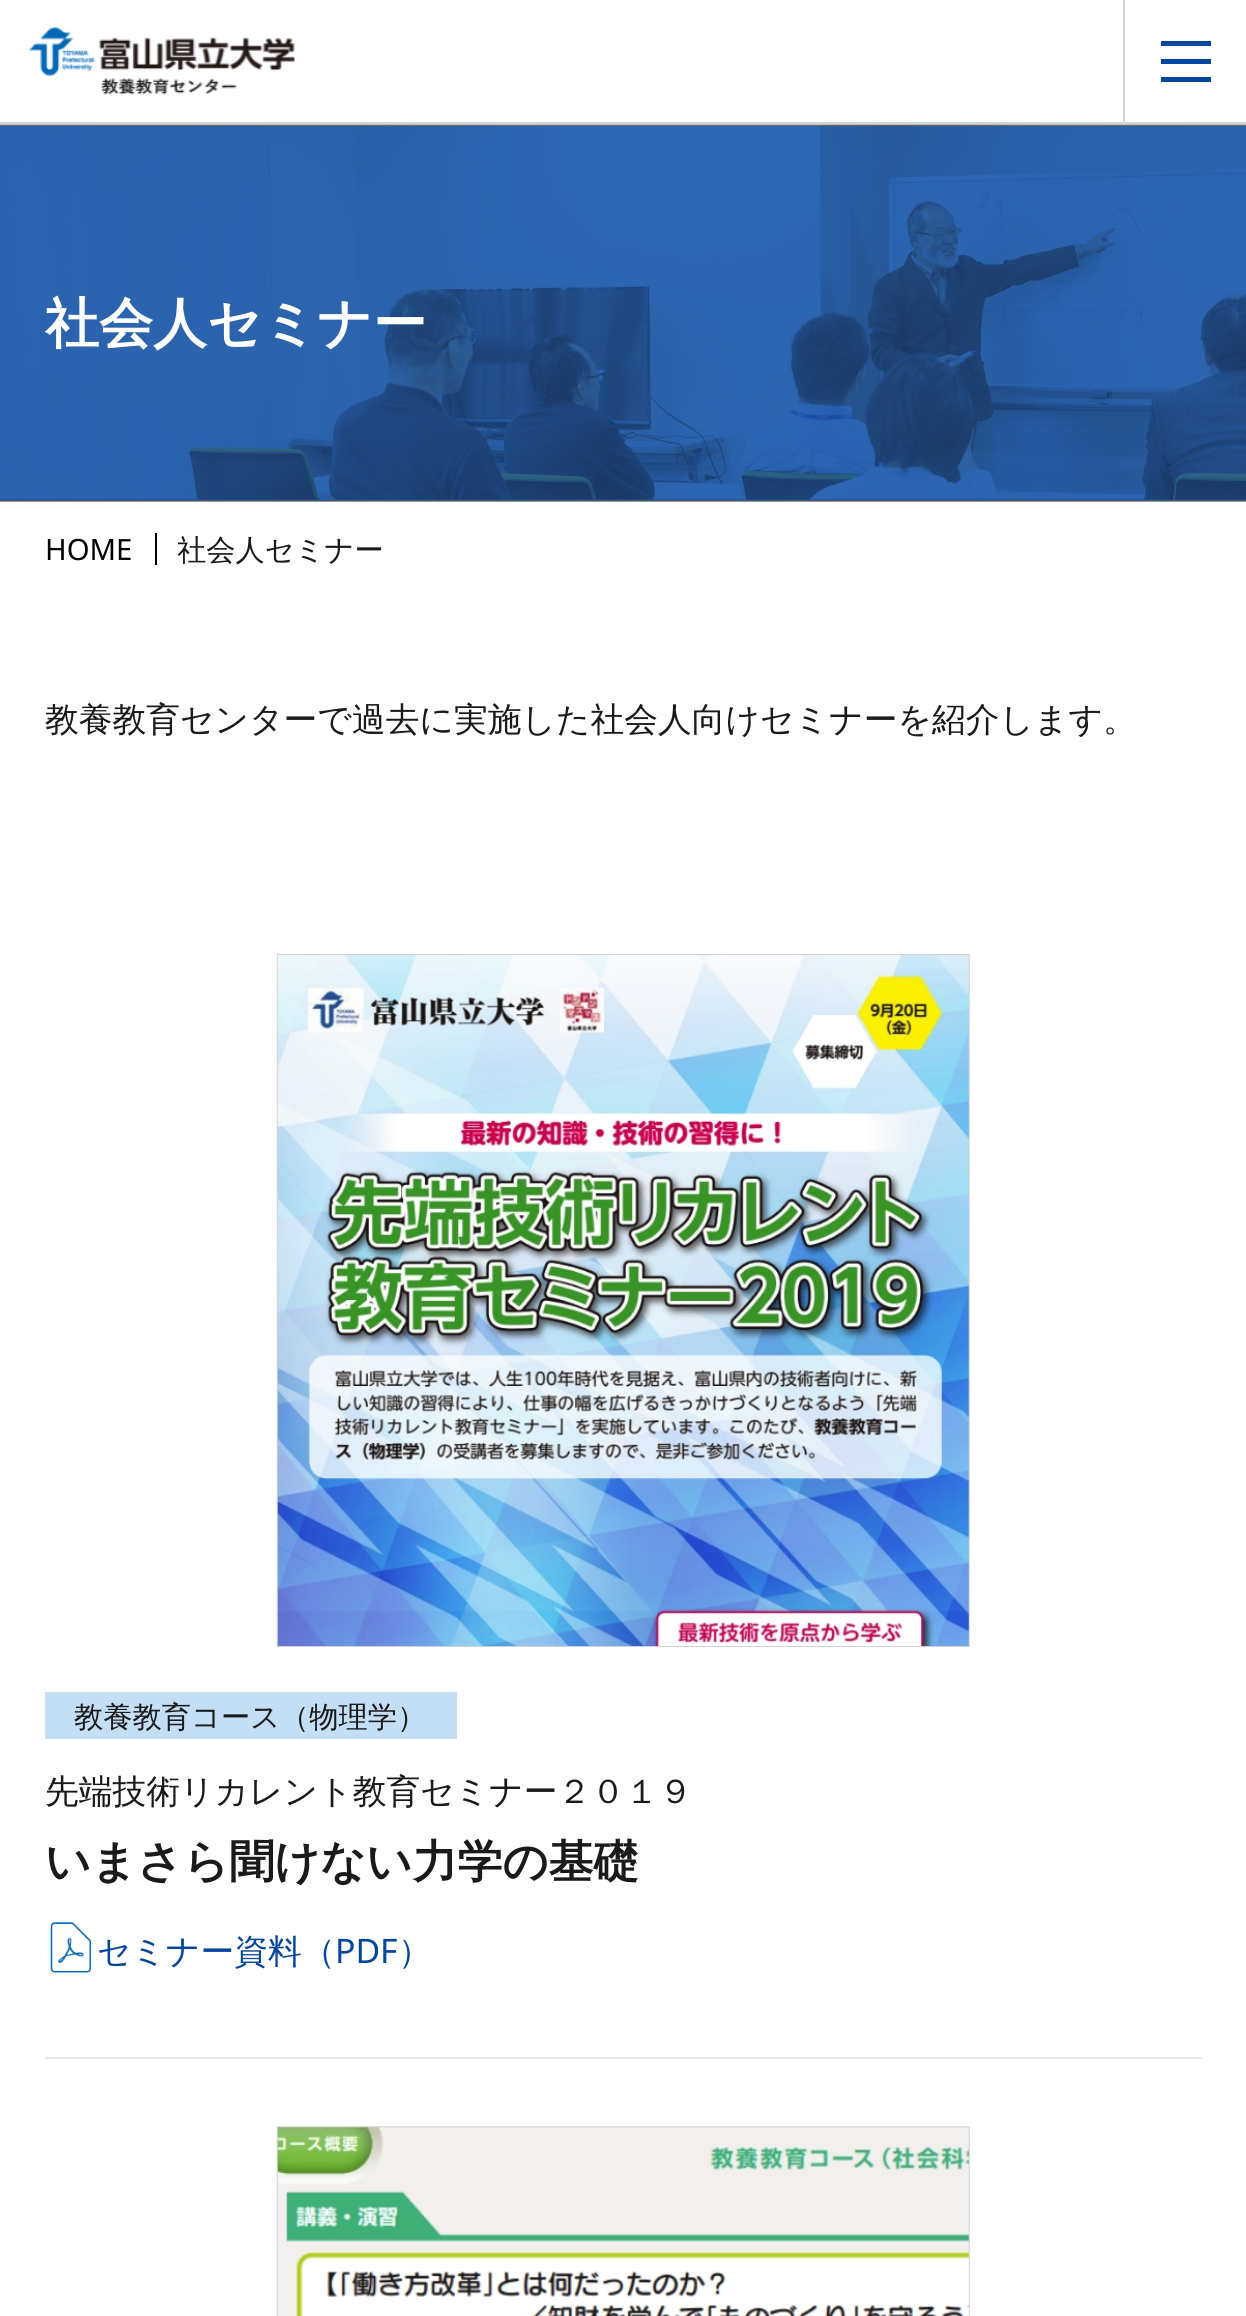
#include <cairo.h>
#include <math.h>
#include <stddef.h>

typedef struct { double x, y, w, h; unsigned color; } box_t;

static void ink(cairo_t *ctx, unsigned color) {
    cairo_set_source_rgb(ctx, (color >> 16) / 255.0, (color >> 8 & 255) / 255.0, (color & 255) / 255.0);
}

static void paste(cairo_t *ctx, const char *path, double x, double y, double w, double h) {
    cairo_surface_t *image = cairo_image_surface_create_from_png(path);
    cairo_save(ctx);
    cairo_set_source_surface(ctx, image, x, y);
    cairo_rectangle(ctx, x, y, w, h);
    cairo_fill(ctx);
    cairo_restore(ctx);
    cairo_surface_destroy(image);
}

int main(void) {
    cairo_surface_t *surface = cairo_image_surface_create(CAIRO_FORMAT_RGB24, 1246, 2316);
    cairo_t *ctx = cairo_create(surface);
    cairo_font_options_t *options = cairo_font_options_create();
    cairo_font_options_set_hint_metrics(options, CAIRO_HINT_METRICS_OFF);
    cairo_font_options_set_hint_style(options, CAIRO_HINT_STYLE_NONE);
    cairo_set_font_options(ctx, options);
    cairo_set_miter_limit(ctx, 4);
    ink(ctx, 0xFFFFFF);
    cairo_paint(ctx);
    ink(ctx, 0xD5D5D5);
    cairo_rectangle(ctx, 0, 122, 1246, 2);
    cairo_fill(ctx);
    paste(ctx, "media/1.png", 29, 27, 266, 68);
    {
        static const box_t items[] = {
            {1123, 0, 2, 122, 0xD5D5D5},
            {1161, 41, 50, 5, 0x04469D},
            {1161, 59, 50, 5, 0x04469D},
            {1161, 77, 50, 5, 0x04469D},
        };
        for (size_t i = 0; i < sizeof items / sizeof *items; i++) {
            ink(ctx, items[i].color);
            cairo_rectangle(ctx, items[i].x, items[i].y, items[i].w, items[i].h);
            cairo_fill(ctx);
        }
    }
    paste(ctx, "media/2.png", 0, 124, 1246, 378);
    cairo_select_font_face(ctx, "WenQuanYi Zen Hei", CAIRO_FONT_SLANT_NORMAL, CAIRO_FONT_WEIGHT_BOLD);
    cairo_set_font_size(ctx, 54);
    ink(ctx, 0xFFFFFF);
    cairo_move_to(ctx, 45, 342);
    cairo_show_text(ctx, "社会人セミナー");
    cairo_select_font_face(ctx, "Noto Sans", CAIRO_FONT_SLANT_NORMAL, CAIRO_FONT_WEIGHT_NORMAL);
    cairo_set_font_size(ctx, 29.25);
    ink(ctx, 0x000000);
    cairo_move_to(ctx, 45, 560);
    cairo_show_text(ctx, "HOME");
    cairo_rectangle(ctx, 155, 533, 2, 32);
    cairo_fill(ctx);
    cairo_select_font_face(ctx, "WenQuanYi Zen Hei Medium", CAIRO_FONT_SLANT_NORMAL, CAIRO_FONT_WEIGHT_NORMAL);
    ink(ctx, 0x1A1A1A);
    cairo_move_to(ctx, 177, 560);
    cairo_show_text(ctx, "社会人セミナー");
    cairo_set_font_size(ctx, 33.75);
    cairo_move_to(ctx, 45, 731);
    cairo_show_text(ctx, "教養教育センターで過去に実施した社会人向けセミナーを紹介します。");
    ink(ctx, 0xE8E8E8);
    cairo_rectangle(ctx, 45, 2057, 1157, 2);
    cairo_fill(ctx);
    paste(ctx, "media/3.png", 276, 954, 694, 693);
    ink(ctx, 0xC4DEF5);
    cairo_rectangle(ctx, 45, 1692, 412, 47);
    cairo_fill(ctx);
    cairo_set_font_size(ctx, 29.25);
    ink(ctx, 0x1A1A1A);
    cairo_move_to(ctx, 74, 1727);
    cairo_show_text(ctx, "教養教育コース（物理学）");
    cairo_set_font_size(ctx, 33.75);
    cairo_move_to(ctx, 45, 1803);
    cairo_show_text(ctx, "先端技術リカレント教育セミナー２０１９");
    cairo_select_font_face(ctx, "WenQuanYi Zen Hei", CAIRO_FONT_SLANT_NORMAL, CAIRO_FONT_WEIGHT_BOLD);
    cairo_set_font_size(ctx, 45);
    cairo_move_to(ctx, 45, 1877);
    cairo_show_text(ctx, "いまさら聞けない力学の基礎");
    paste(ctx, "media/4.png", 50, 1922, 41, 51);
    cairo_select_font_face(ctx, "WenQuanYi Zen Hei Medium", CAIRO_FONT_SLANT_NORMAL, CAIRO_FONT_WEIGHT_NORMAL);
    cairo_set_font_size(ctx, 33.75);
    ink(ctx, 0x04469D);
    cairo_move_to(ctx, 97, 1963);
    cairo_show_text(ctx, "セミナー資料（");
    cairo_select_font_face(ctx, "Noto Sans", CAIRO_FONT_SLANT_NORMAL, CAIRO_FONT_WEIGHT_NORMAL);
    cairo_move_to(ctx, 335, 1963);
    cairo_show_text(ctx, "PDF");
    cairo_select_font_face(ctx, "WenQuanYi Zen Hei Medium", CAIRO_FONT_SLANT_NORMAL, CAIRO_FONT_WEIGHT_NORMAL);
    cairo_move_to(ctx, 398, 1963);
    cairo_show_text(ctx, "）");
    paste(ctx, "media/5.png", 276, 2126, 694, 190);
    cairo_surface_write_to_png(surface, "image.png");
    cairo_font_options_destroy(options);
    cairo_destroy(ctx);
    cairo_surface_destroy(surface);
    return 0;
}
